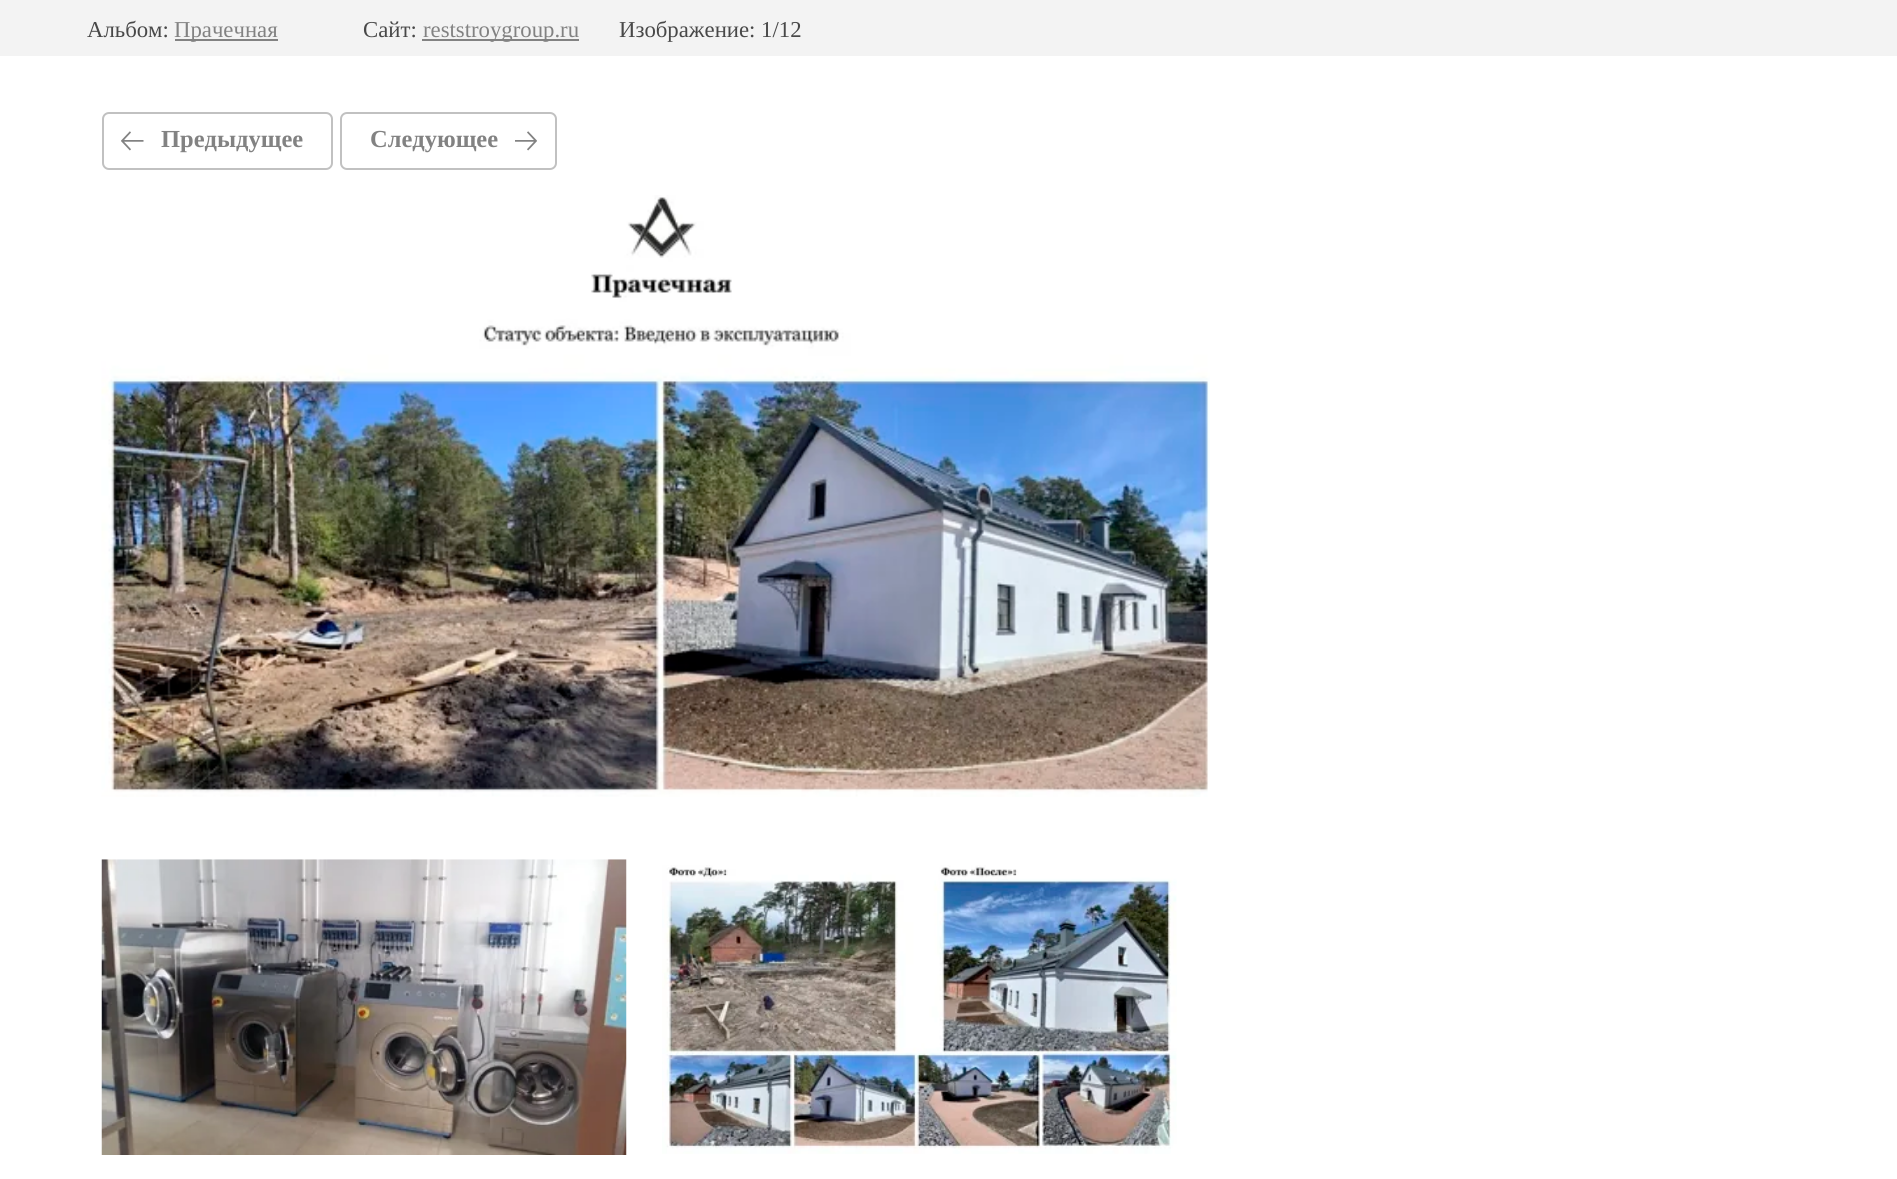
#include <cairo.h>
#include <math.h>
#include <stddef.h>


static void ink(cairo_t *ctx, unsigned color) {
    cairo_set_source_rgb(ctx, (color >> 16) / 255.0, (color >> 8 & 255) / 255.0, (color & 255) / 255.0);
}

static void round_path(cairo_t *ctx, double x, double y, double w, double h, double r) {
    cairo_new_sub_path(ctx);
    cairo_arc(ctx, x + w - r, y + h - r, r, 0, M_PI / 2);
    cairo_arc(ctx, x + r, y + h - r, r, M_PI / 2, M_PI);
    cairo_arc(ctx, x + r, y + r, r, M_PI, 1.5 * M_PI);
    cairo_arc(ctx, x + w - r, y + r, r, 1.5 * M_PI, 2 * M_PI);
    cairo_close_path(ctx);
}

static void paste(cairo_t *ctx, const char *path, double x, double y, double w, double h) {
    cairo_surface_t *image = cairo_image_surface_create_from_png(path);
    cairo_save(ctx);
    cairo_set_source_surface(ctx, image, x, y);
    cairo_rectangle(ctx, x, y, w, h);
    cairo_fill(ctx);
    cairo_restore(ctx);
    cairo_surface_destroy(image);
}

int main(void) {
    cairo_surface_t *surface = cairo_image_surface_create(CAIRO_FORMAT_RGB24, 1897, 1179);
    cairo_t *ctx = cairo_create(surface);
    cairo_font_options_t *options = cairo_font_options_create();
    cairo_font_options_set_hint_metrics(options, CAIRO_HINT_METRICS_OFF);
    cairo_font_options_set_hint_style(options, CAIRO_HINT_STYLE_NONE);
    cairo_set_font_options(ctx, options);
    cairo_set_miter_limit(ctx, 4);
    ink(ctx, 0xFFFFFF);
    cairo_paint(ctx);
    ink(ctx, 0xF3F3F3);
    cairo_rectangle(ctx, 0, 0, 1897, 56);
    cairo_fill(ctx);
    cairo_select_font_face(ctx, "Liberation Serif", CAIRO_FONT_SLANT_NORMAL, CAIRO_FONT_WEIGHT_NORMAL);
    cairo_set_font_size(ctx, 22.75);
    ink(ctx, 0x484848);
    cairo_move_to(ctx, 87, 37);
    cairo_show_text(ctx, "Альбом:");
    ink(ctx, 0x828282);
    cairo_rectangle(ctx, 175, 39, 103, 2);
    cairo_fill(ctx);
    cairo_move_to(ctx, 174, 37);
    cairo_show_text(ctx, "Прачечная");
    ink(ctx, 0x484848);
    cairo_move_to(ctx, 363, 37);
    cairo_show_text(ctx, "Сайт:");
    ink(ctx, 0x828282);
    cairo_rectangle(ctx, 422, 39, 157, 2);
    cairo_fill(ctx);
    cairo_move_to(ctx, 423, 37);
    cairo_show_text(ctx, "reststroygroup.ru");
    ink(ctx, 0x484848);
    cairo_move_to(ctx, 619, 37);
    cairo_show_text(ctx, "Изображение: 1/12");
    round_path(ctx, 103, 113, 229, 56, 6);
    ink(ctx, 0xC1C1C1);
    cairo_stroke(ctx);
    paste(ctx, "media/1.png", 121, 131, 23, 20);
    cairo_select_font_face(ctx, "Liberation Serif", CAIRO_FONT_SLANT_NORMAL, CAIRO_FONT_WEIGHT_BOLD);
    cairo_set_font_size(ctx, 24.5);
    ink(ctx, 0x828282);
    cairo_move_to(ctx, 161, 147);
    cairo_show_text(ctx, "Предыдущее");
    round_path(ctx, 341, 113, 215, 56, 6);
    ink(ctx, 0xC1C1C1);
    cairo_stroke(ctx);
    ink(ctx, 0x828282);
    cairo_move_to(ctx, 370, 147);
    cairo_show_text(ctx, "Следующее");
    paste(ctx, "media/2.png", 515, 131, 22, 20);
    paste(ctx, "media/3.png", 101, 195, 1109, 602);
    paste(ctx, "media/4.png", 101, 859, 526, 296);
    paste(ctx, "media/5.png", 662, 865, 515, 289);
    cairo_surface_write_to_png(surface, "image.png");
    cairo_font_options_destroy(options);
    cairo_destroy(ctx);
    cairo_surface_destroy(surface);
    return 0;
}
